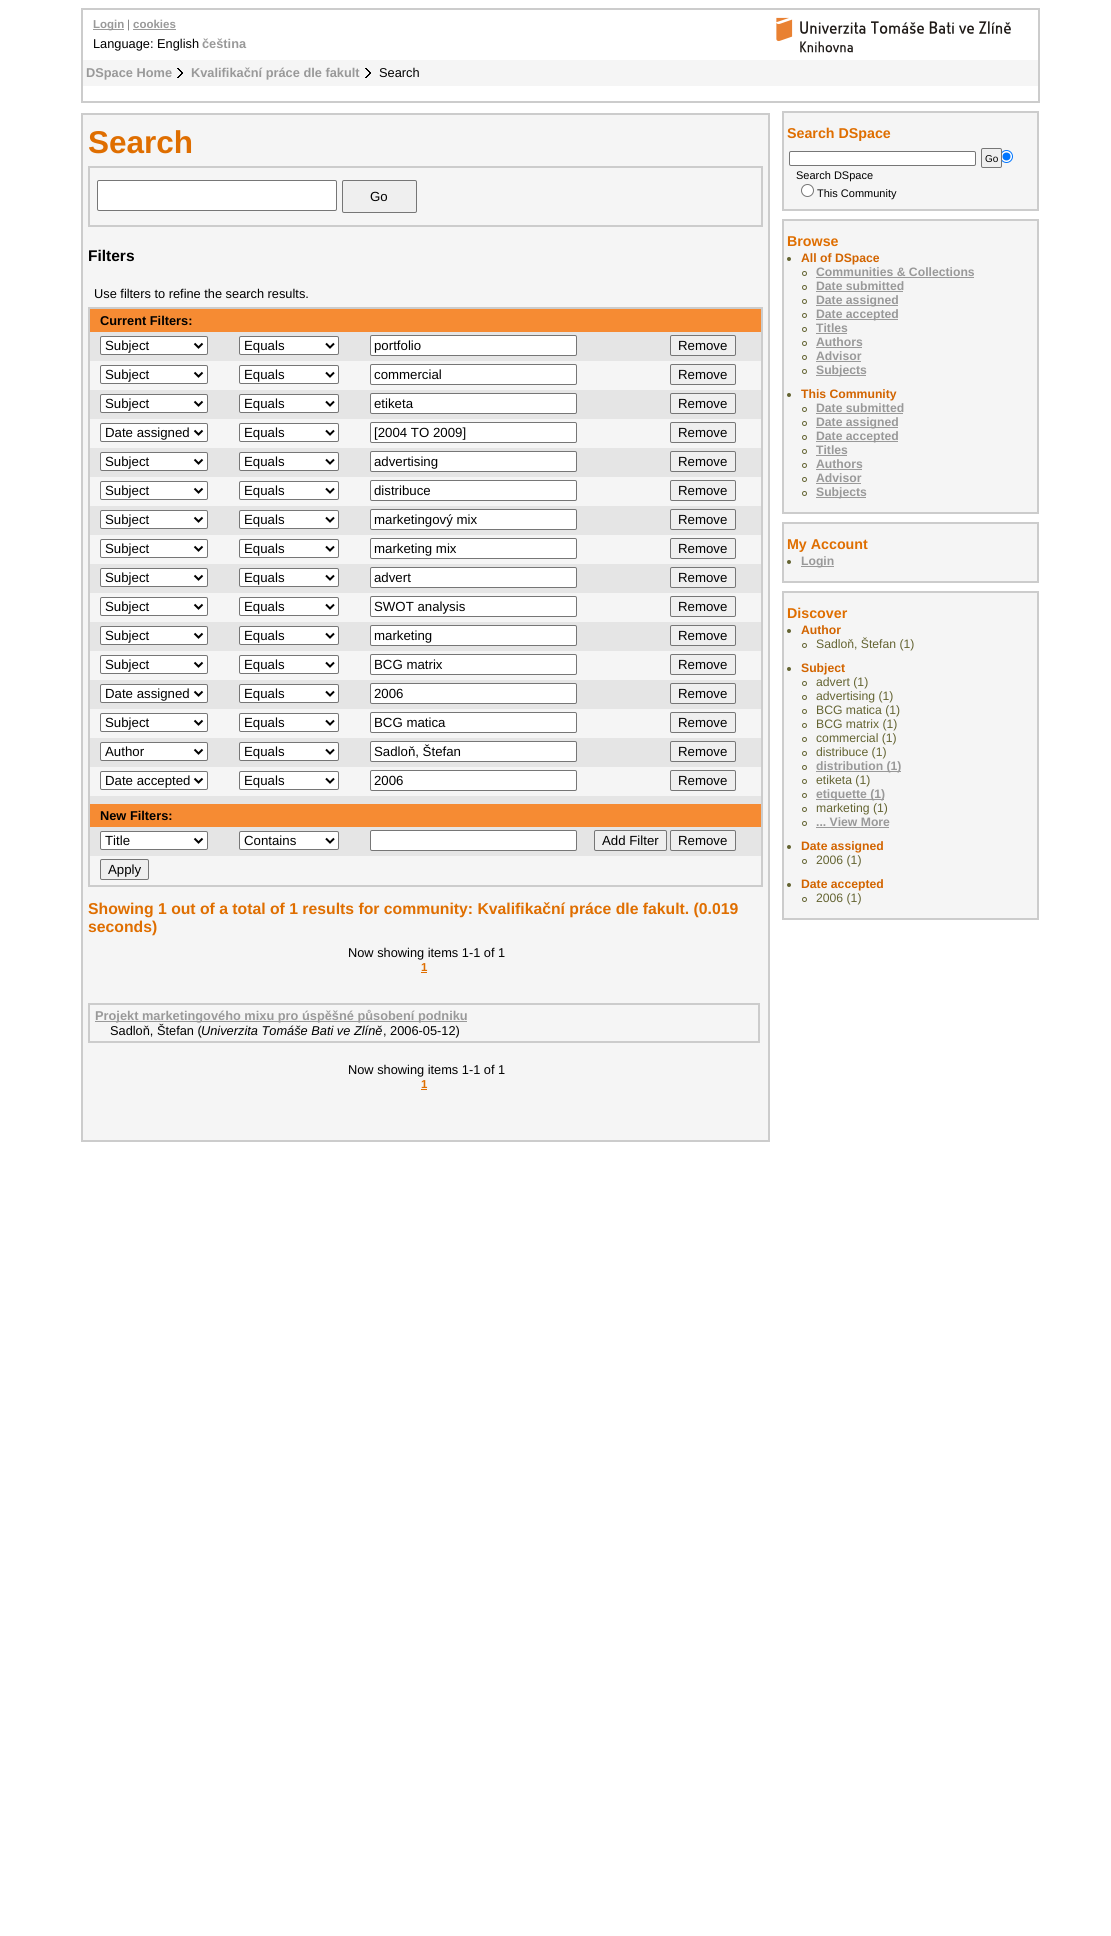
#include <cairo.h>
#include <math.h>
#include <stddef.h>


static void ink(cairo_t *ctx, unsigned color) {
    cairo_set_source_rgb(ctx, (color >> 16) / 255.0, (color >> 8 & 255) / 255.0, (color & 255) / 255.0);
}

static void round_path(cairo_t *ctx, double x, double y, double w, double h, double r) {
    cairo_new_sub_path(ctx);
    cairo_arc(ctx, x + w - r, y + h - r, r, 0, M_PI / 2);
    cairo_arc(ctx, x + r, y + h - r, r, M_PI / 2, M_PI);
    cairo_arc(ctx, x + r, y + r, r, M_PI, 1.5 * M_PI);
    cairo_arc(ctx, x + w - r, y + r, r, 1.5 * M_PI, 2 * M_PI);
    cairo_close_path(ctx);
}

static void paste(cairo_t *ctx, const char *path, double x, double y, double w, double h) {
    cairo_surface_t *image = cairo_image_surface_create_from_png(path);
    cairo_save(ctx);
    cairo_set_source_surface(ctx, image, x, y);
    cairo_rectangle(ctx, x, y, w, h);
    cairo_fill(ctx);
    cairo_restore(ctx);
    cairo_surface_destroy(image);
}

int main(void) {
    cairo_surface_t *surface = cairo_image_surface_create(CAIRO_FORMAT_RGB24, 1111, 1936);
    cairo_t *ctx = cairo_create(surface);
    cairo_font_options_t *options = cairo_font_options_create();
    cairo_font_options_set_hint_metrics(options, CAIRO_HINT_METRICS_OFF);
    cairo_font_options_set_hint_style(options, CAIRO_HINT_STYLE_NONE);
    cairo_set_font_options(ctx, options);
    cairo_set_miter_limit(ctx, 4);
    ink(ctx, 0xFFFFFF);
    cairo_paint(ctx);
    cairo_rectangle(ctx, 82, 9, 957, 93);
    ink(ctx, 0xCCCCCC);
    cairo_stroke(ctx);
    ink(ctx, 0x999999);
    cairo_rectangle(ctx, 93, 29, 31, 1);
    cairo_fill(ctx);
    cairo_select_font_face(ctx, "Liberation Sans", CAIRO_FONT_SLANT_NORMAL, CAIRO_FONT_WEIGHT_BOLD);
    cairo_set_font_size(ctx, 11.5);
    cairo_move_to(ctx, 93, 28);
    cairo_show_text(ctx, "Login");
    cairo_select_font_face(ctx, "Liberation Sans", CAIRO_FONT_SLANT_NORMAL, CAIRO_FONT_WEIGHT_NORMAL);
    ink(ctx, 0x808080);
    cairo_move_to(ctx, 127, 28);
    cairo_show_text(ctx, "|");
    cairo_select_font_face(ctx, "Liberation Sans", CAIRO_FONT_SLANT_NORMAL, CAIRO_FONT_WEIGHT_BOLD);
    ink(ctx, 0x999999);
    cairo_move_to(ctx, 133, 28);
    cairo_show_text(ctx, "cookies");
    cairo_rectangle(ctx, 133, 29, 43, 1);
    cairo_fill(ctx);
    paste(ctx, "media/1.png", 776, 17, 235, 36);
    cairo_select_font_face(ctx, "Liberation Sans", CAIRO_FONT_SLANT_NORMAL, CAIRO_FONT_WEIGHT_NORMAL);
    cairo_set_font_size(ctx, 12.8);
    ink(ctx, 0x000000);
    cairo_move_to(ctx, 93, 48);
    cairo_show_text(ctx, "Language: English");
    cairo_select_font_face(ctx, "Liberation Sans", CAIRO_FONT_SLANT_NORMAL, CAIRO_FONT_WEIGHT_BOLD);
    ink(ctx, 0x999999);
    cairo_move_to(ctx, 202, 48);
    cairo_show_text(ctx, "čeština");
    ink(ctx, 0xF5F5F5);
    cairo_rectangle(ctx, 83, 60, 955, 26);
    cairo_fill(ctx);
    ink(ctx, 0x999999);
    cairo_move_to(ctx, 86, 77);
    cairo_show_text(ctx, "DSpace Home");
    paste(ctx, "media/2.png", 177, 68, 6, 10);
    cairo_move_to(ctx, 191, 77);
    cairo_show_text(ctx, "Kvalifikační práce dle fakult");
    paste(ctx, "media/2.png", 365, 68, 6, 10);
    cairo_select_font_face(ctx, "Liberation Sans", CAIRO_FONT_SLANT_NORMAL, CAIRO_FONT_WEIGHT_NORMAL);
    ink(ctx, 0x000000);
    cairo_move_to(ctx, 379, 77);
    cairo_show_text(ctx, "Search");
    ink(ctx, 0xF5F5F5);
    cairo_rectangle(ctx, 82, 114, 687, 1027);
    cairo_fill_preserve(ctx);
    ink(ctx, 0xCCCCCC);
    cairo_stroke(ctx);
    cairo_select_font_face(ctx, "Liberation Sans", CAIRO_FONT_SLANT_NORMAL, CAIRO_FONT_WEIGHT_BOLD);
    cairo_set_font_size(ctx, 31.5);
    ink(ctx, 0xDF6E00);
    cairo_move_to(ctx, 88, 153);
    cairo_show_text(ctx, "Search");
    cairo_rectangle(ctx, 89, 167, 673, 59);
    ink(ctx, 0xCCCCCC);
    cairo_stroke(ctx);
    ink(ctx, 0xFFFFFF);
    round_path(ctx, 97.5, 180.5, 239, 30, 1.5);
    cairo_fill_preserve(ctx);
    ink(ctx, 0x767676);
    cairo_set_line_width(ctx, 1);
    cairo_stroke(ctx);
    ink(ctx, 0xEFEFEF);
    round_path(ctx, 342.5, 180.5, 74, 32, 1.5);
    cairo_fill_preserve(ctx);
    ink(ctx, 0x767676);
    cairo_stroke(ctx);
    cairo_select_font_face(ctx, "Liberation Sans", CAIRO_FONT_SLANT_NORMAL, CAIRO_FONT_WEIGHT_NORMAL);
    cairo_set_font_size(ctx, 13.25);
    ink(ctx, 0x000000);
    cairo_move_to(ctx, 370, 201);
    cairo_show_text(ctx, "Go");
    cairo_select_font_face(ctx, "Liberation Sans", CAIRO_FONT_SLANT_NORMAL, CAIRO_FONT_WEIGHT_BOLD);
    cairo_set_font_size(ctx, 15.5);
    cairo_move_to(ctx, 88, 261);
    cairo_show_text(ctx, "Filters");
    cairo_select_font_face(ctx, "Liberation Sans", CAIRO_FONT_SLANT_NORMAL, CAIRO_FONT_WEIGHT_NORMAL);
    cairo_set_font_size(ctx, 12.8);
    cairo_move_to(ctx, 94, 298);
    cairo_show_text(ctx, "Use filters to refine the search results.");
    cairo_rectangle(ctx, 89, 308, 673, 578);
    ink(ctx, 0xCCCCCC);
    cairo_set_line_width(ctx, 2);
    cairo_stroke(ctx);
    ink(ctx, 0xF68B33);
    cairo_rectangle(ctx, 90, 309, 671, 23);
    cairo_fill(ctx);
    cairo_select_font_face(ctx, "Liberation Sans", CAIRO_FONT_SLANT_NORMAL, CAIRO_FONT_WEIGHT_BOLD);
    ink(ctx, 0x000000);
    cairo_move_to(ctx, 100, 325);
    cairo_show_text(ctx, "Current Filters:");
    ink(ctx, 0xE5E5E5);
    cairo_rectangle(ctx, 90, 332, 671, 29);
    cairo_fill(ctx);
    ink(ctx, 0xFFFFFF);
    round_path(ctx, 100.5, 336.5, 107, 18, 1.5);
    cairo_fill_preserve(ctx);
    ink(ctx, 0x767676);
    cairo_set_line_width(ctx, 1);
    cairo_stroke(ctx);
    cairo_new_path(ctx);
    cairo_move_to(ctx, 194.5, 343.5);
    cairo_line_to(ctx, 198.5, 347.5);
    cairo_line_to(ctx, 202.5, 343.5);
    ink(ctx, 0x000000);
    cairo_set_line_width(ctx, 2);
    cairo_stroke(ctx);
    cairo_select_font_face(ctx, "Liberation Sans", CAIRO_FONT_SLANT_NORMAL, CAIRO_FONT_WEIGHT_NORMAL);
    cairo_set_font_size(ctx, 13.25);
    cairo_move_to(ctx, 105, 350);
    cairo_show_text(ctx, "Subject");
    ink(ctx, 0xFFFFFF);
    round_path(ctx, 239.5, 336.5, 99, 18, 1.5);
    cairo_fill_preserve(ctx);
    ink(ctx, 0x767676);
    cairo_set_line_width(ctx, 1);
    cairo_stroke(ctx);
    cairo_new_path(ctx);
    cairo_move_to(ctx, 326, 343.5);
    cairo_line_to(ctx, 330, 347.5);
    cairo_line_to(ctx, 334, 343.5);
    ink(ctx, 0x000000);
    cairo_set_line_width(ctx, 2);
    cairo_stroke(ctx);
    cairo_move_to(ctx, 244, 350);
    cairo_show_text(ctx, "Equals");
    ink(ctx, 0xFFFFFF);
    round_path(ctx, 370.5, 335.5, 206, 20, 1.5);
    cairo_fill_preserve(ctx);
    ink(ctx, 0x767676);
    cairo_set_line_width(ctx, 1);
    cairo_stroke(ctx);
    ink(ctx, 0x000000);
    cairo_move_to(ctx, 374, 350);
    cairo_show_text(ctx, "portfolio");
    ink(ctx, 0xEFEFEF);
    round_path(ctx, 670.5, 335.5, 65, 20, 1.5);
    cairo_fill_preserve(ctx);
    ink(ctx, 0x767676);
    cairo_stroke(ctx);
    ink(ctx, 0x000000);
    cairo_move_to(ctx, 678, 350);
    cairo_show_text(ctx, "Remove");
    ink(ctx, 0xFFFFFF);
    round_path(ctx, 100.5, 365.5, 107, 18, 1.5);
    cairo_fill_preserve(ctx);
    ink(ctx, 0x767676);
    cairo_stroke(ctx);
    cairo_new_path(ctx);
    cairo_move_to(ctx, 194.5, 372.5);
    cairo_line_to(ctx, 198.5, 376.5);
    cairo_line_to(ctx, 202.5, 372.5);
    ink(ctx, 0x000000);
    cairo_set_line_width(ctx, 2);
    cairo_stroke(ctx);
    cairo_move_to(ctx, 105, 379);
    cairo_show_text(ctx, "Subject");
    ink(ctx, 0xFFFFFF);
    round_path(ctx, 239.5, 365.5, 99, 18, 1.5);
    cairo_fill_preserve(ctx);
    ink(ctx, 0x767676);
    cairo_set_line_width(ctx, 1);
    cairo_stroke(ctx);
    cairo_new_path(ctx);
    cairo_move_to(ctx, 326, 372.5);
    cairo_line_to(ctx, 330, 376.5);
    cairo_line_to(ctx, 334, 372.5);
    ink(ctx, 0x000000);
    cairo_set_line_width(ctx, 2);
    cairo_stroke(ctx);
    cairo_move_to(ctx, 244, 379);
    cairo_show_text(ctx, "Equals");
    ink(ctx, 0xFFFFFF);
    round_path(ctx, 370.5, 364.5, 206, 20, 1.5);
    cairo_fill_preserve(ctx);
    ink(ctx, 0x767676);
    cairo_set_line_width(ctx, 1);
    cairo_stroke(ctx);
    ink(ctx, 0x000000);
    cairo_move_to(ctx, 374, 379);
    cairo_show_text(ctx, "commercial");
    ink(ctx, 0xEFEFEF);
    round_path(ctx, 670.5, 364.5, 65, 20, 1.5);
    cairo_fill_preserve(ctx);
    ink(ctx, 0x767676);
    cairo_stroke(ctx);
    ink(ctx, 0x000000);
    cairo_move_to(ctx, 678, 379);
    cairo_show_text(ctx, "Remove");
    ink(ctx, 0xE5E5E5);
    cairo_rectangle(ctx, 90, 390, 671, 29);
    cairo_fill(ctx);
    ink(ctx, 0xFFFFFF);
    round_path(ctx, 100.5, 394.5, 107, 18, 1.5);
    cairo_fill_preserve(ctx);
    ink(ctx, 0x767676);
    cairo_stroke(ctx);
    cairo_new_path(ctx);
    cairo_move_to(ctx, 194.5, 401.5);
    cairo_line_to(ctx, 198.5, 405.5);
    cairo_line_to(ctx, 202.5, 401.5);
    ink(ctx, 0x000000);
    cairo_set_line_width(ctx, 2);
    cairo_stroke(ctx);
    cairo_move_to(ctx, 105, 408);
    cairo_show_text(ctx, "Subject");
    ink(ctx, 0xFFFFFF);
    round_path(ctx, 239.5, 394.5, 99, 18, 1.5);
    cairo_fill_preserve(ctx);
    ink(ctx, 0x767676);
    cairo_set_line_width(ctx, 1);
    cairo_stroke(ctx);
    cairo_new_path(ctx);
    cairo_move_to(ctx, 326, 401.5);
    cairo_line_to(ctx, 330, 405.5);
    cairo_line_to(ctx, 334, 401.5);
    ink(ctx, 0x000000);
    cairo_set_line_width(ctx, 2);
    cairo_stroke(ctx);
    cairo_move_to(ctx, 244, 408);
    cairo_show_text(ctx, "Equals");
    ink(ctx, 0xFFFFFF);
    round_path(ctx, 370.5, 393.5, 206, 20, 1.5);
    cairo_fill_preserve(ctx);
    ink(ctx, 0x767676);
    cairo_set_line_width(ctx, 1);
    cairo_stroke(ctx);
    ink(ctx, 0x000000);
    cairo_move_to(ctx, 374, 408);
    cairo_show_text(ctx, "etiketa");
    ink(ctx, 0xEFEFEF);
    round_path(ctx, 670.5, 393.5, 65, 20, 1.5);
    cairo_fill_preserve(ctx);
    ink(ctx, 0x767676);
    cairo_stroke(ctx);
    ink(ctx, 0x000000);
    cairo_move_to(ctx, 678, 408);
    cairo_show_text(ctx, "Remove");
    ink(ctx, 0xFFFFFF);
    round_path(ctx, 100.5, 423.5, 107, 18, 1.5);
    cairo_fill_preserve(ctx);
    ink(ctx, 0x767676);
    cairo_stroke(ctx);
    cairo_new_path(ctx);
    cairo_move_to(ctx, 194.5, 430.5);
    cairo_line_to(ctx, 198.5, 434.5);
    cairo_line_to(ctx, 202.5, 430.5);
    ink(ctx, 0x000000);
    cairo_set_line_width(ctx, 2);
    cairo_stroke(ctx);
    cairo_move_to(ctx, 105, 437);
    cairo_show_text(ctx, "Date assigned");
    ink(ctx, 0xFFFFFF);
    round_path(ctx, 239.5, 423.5, 99, 18, 1.5);
    cairo_fill_preserve(ctx);
    ink(ctx, 0x767676);
    cairo_set_line_width(ctx, 1);
    cairo_stroke(ctx);
    cairo_new_path(ctx);
    cairo_move_to(ctx, 326, 430.5);
    cairo_line_to(ctx, 330, 434.5);
    cairo_line_to(ctx, 334, 430.5);
    ink(ctx, 0x000000);
    cairo_set_line_width(ctx, 2);
    cairo_stroke(ctx);
    cairo_move_to(ctx, 244, 437);
    cairo_show_text(ctx, "Equals");
    ink(ctx, 0xFFFFFF);
    round_path(ctx, 370.5, 422.5, 206, 20, 1.5);
    cairo_fill_preserve(ctx);
    ink(ctx, 0x767676);
    cairo_set_line_width(ctx, 1);
    cairo_stroke(ctx);
    ink(ctx, 0x000000);
    cairo_move_to(ctx, 374, 437);
    cairo_show_text(ctx, "[2004 TO 2009]");
    ink(ctx, 0xEFEFEF);
    round_path(ctx, 670.5, 422.5, 65, 20, 1.5);
    cairo_fill_preserve(ctx);
    ink(ctx, 0x767676);
    cairo_stroke(ctx);
    ink(ctx, 0x000000);
    cairo_move_to(ctx, 678, 437);
    cairo_show_text(ctx, "Remove");
    ink(ctx, 0xE5E5E5);
    cairo_rectangle(ctx, 90, 448, 671, 29);
    cairo_fill(ctx);
    ink(ctx, 0xFFFFFF);
    round_path(ctx, 100.5, 452.5, 107, 18, 1.5);
    cairo_fill_preserve(ctx);
    ink(ctx, 0x767676);
    cairo_stroke(ctx);
    cairo_new_path(ctx);
    cairo_move_to(ctx, 194.5, 459.5);
    cairo_line_to(ctx, 198.5, 463.5);
    cairo_line_to(ctx, 202.5, 459.5);
    ink(ctx, 0x000000);
    cairo_set_line_width(ctx, 2);
    cairo_stroke(ctx);
    cairo_move_to(ctx, 105, 466);
    cairo_show_text(ctx, "Subject");
    ink(ctx, 0xFFFFFF);
    round_path(ctx, 239.5, 452.5, 99, 18, 1.5);
    cairo_fill_preserve(ctx);
    ink(ctx, 0x767676);
    cairo_set_line_width(ctx, 1);
    cairo_stroke(ctx);
    cairo_new_path(ctx);
    cairo_move_to(ctx, 326, 459.5);
    cairo_line_to(ctx, 330, 463.5);
    cairo_line_to(ctx, 334, 459.5);
    ink(ctx, 0x000000);
    cairo_set_line_width(ctx, 2);
    cairo_stroke(ctx);
    cairo_move_to(ctx, 244, 466);
    cairo_show_text(ctx, "Equals");
    ink(ctx, 0xFFFFFF);
    round_path(ctx, 370.5, 451.5, 206, 20, 1.5);
    cairo_fill_preserve(ctx);
    ink(ctx, 0x767676);
    cairo_set_line_width(ctx, 1);
    cairo_stroke(ctx);
    ink(ctx, 0x000000);
    cairo_move_to(ctx, 374, 466);
    cairo_show_text(ctx, "advertising");
    ink(ctx, 0xEFEFEF);
    round_path(ctx, 670.5, 451.5, 65, 20, 1.5);
    cairo_fill_preserve(ctx);
    ink(ctx, 0x767676);
    cairo_stroke(ctx);
    ink(ctx, 0x000000);
    cairo_move_to(ctx, 678, 466);
    cairo_show_text(ctx, "Remove");
    ink(ctx, 0xFFFFFF);
    round_path(ctx, 100.5, 481.5, 107, 18, 1.5);
    cairo_fill_preserve(ctx);
    ink(ctx, 0x767676);
    cairo_stroke(ctx);
    cairo_new_path(ctx);
    cairo_move_to(ctx, 194.5, 488.5);
    cairo_line_to(ctx, 198.5, 492.5);
    cairo_line_to(ctx, 202.5, 488.5);
    ink(ctx, 0x000000);
    cairo_set_line_width(ctx, 2);
    cairo_stroke(ctx);
    cairo_move_to(ctx, 105, 495);
    cairo_show_text(ctx, "Subject");
    ink(ctx, 0xFFFFFF);
    round_path(ctx, 239.5, 481.5, 99, 18, 1.5);
    cairo_fill_preserve(ctx);
    ink(ctx, 0x767676);
    cairo_set_line_width(ctx, 1);
    cairo_stroke(ctx);
    cairo_new_path(ctx);
    cairo_move_to(ctx, 326, 488.5);
    cairo_line_to(ctx, 330, 492.5);
    cairo_line_to(ctx, 334, 488.5);
    ink(ctx, 0x000000);
    cairo_set_line_width(ctx, 2);
    cairo_stroke(ctx);
    cairo_move_to(ctx, 244, 495);
    cairo_show_text(ctx, "Equals");
    ink(ctx, 0xFFFFFF);
    round_path(ctx, 370.5, 480.5, 206, 20, 1.5);
    cairo_fill_preserve(ctx);
    ink(ctx, 0x767676);
    cairo_set_line_width(ctx, 1);
    cairo_stroke(ctx);
    ink(ctx, 0x000000);
    cairo_move_to(ctx, 374, 495);
    cairo_show_text(ctx, "distribuce");
    ink(ctx, 0xEFEFEF);
    round_path(ctx, 670.5, 480.5, 65, 20, 1.5);
    cairo_fill_preserve(ctx);
    ink(ctx, 0x767676);
    cairo_stroke(ctx);
    ink(ctx, 0x000000);
    cairo_move_to(ctx, 678, 495);
    cairo_show_text(ctx, "Remove");
    ink(ctx, 0xE5E5E5);
    cairo_rectangle(ctx, 90, 506, 671, 29);
    cairo_fill(ctx);
    ink(ctx, 0xFFFFFF);
    round_path(ctx, 100.5, 510.5, 107, 18, 1.5);
    cairo_fill_preserve(ctx);
    ink(ctx, 0x767676);
    cairo_stroke(ctx);
    cairo_new_path(ctx);
    cairo_move_to(ctx, 194.5, 517.5);
    cairo_line_to(ctx, 198.5, 521.5);
    cairo_line_to(ctx, 202.5, 517.5);
    ink(ctx, 0x000000);
    cairo_set_line_width(ctx, 2);
    cairo_stroke(ctx);
    cairo_move_to(ctx, 105, 524);
    cairo_show_text(ctx, "Subject");
    ink(ctx, 0xFFFFFF);
    round_path(ctx, 239.5, 510.5, 99, 18, 1.5);
    cairo_fill_preserve(ctx);
    ink(ctx, 0x767676);
    cairo_set_line_width(ctx, 1);
    cairo_stroke(ctx);
    cairo_new_path(ctx);
    cairo_move_to(ctx, 326, 517.5);
    cairo_line_to(ctx, 330, 521.5);
    cairo_line_to(ctx, 334, 517.5);
    ink(ctx, 0x000000);
    cairo_set_line_width(ctx, 2);
    cairo_stroke(ctx);
    cairo_move_to(ctx, 244, 524);
    cairo_show_text(ctx, "Equals");
    ink(ctx, 0xFFFFFF);
    round_path(ctx, 370.5, 509.5, 206, 20, 1.5);
    cairo_fill_preserve(ctx);
    ink(ctx, 0x767676);
    cairo_set_line_width(ctx, 1);
    cairo_stroke(ctx);
    ink(ctx, 0x000000);
    cairo_move_to(ctx, 374, 524);
    cairo_show_text(ctx, "marketingový mix");
    ink(ctx, 0xEFEFEF);
    round_path(ctx, 670.5, 509.5, 65, 20, 1.5);
    cairo_fill_preserve(ctx);
    ink(ctx, 0x767676);
    cairo_stroke(ctx);
    ink(ctx, 0x000000);
    cairo_move_to(ctx, 678, 524);
    cairo_show_text(ctx, "Remove");
    ink(ctx, 0xFFFFFF);
    round_path(ctx, 100.5, 539.5, 107, 18, 1.5);
    cairo_fill_preserve(ctx);
    ink(ctx, 0x767676);
    cairo_stroke(ctx);
    cairo_new_path(ctx);
    cairo_move_to(ctx, 194.5, 546.5);
    cairo_line_to(ctx, 198.5, 550.5);
    cairo_line_to(ctx, 202.5, 546.5);
    ink(ctx, 0x000000);
    cairo_set_line_width(ctx, 2);
    cairo_stroke(ctx);
    cairo_move_to(ctx, 105, 553);
    cairo_show_text(ctx, "Subject");
    ink(ctx, 0xFFFFFF);
    round_path(ctx, 239.5, 539.5, 99, 18, 1.5);
    cairo_fill_preserve(ctx);
    ink(ctx, 0x767676);
    cairo_set_line_width(ctx, 1);
    cairo_stroke(ctx);
    cairo_new_path(ctx);
    cairo_move_to(ctx, 326, 546.5);
    cairo_line_to(ctx, 330, 550.5);
    cairo_line_to(ctx, 334, 546.5);
    ink(ctx, 0x000000);
    cairo_set_line_width(ctx, 2);
    cairo_stroke(ctx);
    cairo_move_to(ctx, 244, 553);
    cairo_show_text(ctx, "Equals");
    ink(ctx, 0xFFFFFF);
    round_path(ctx, 370.5, 538.5, 206, 20, 1.5);
    cairo_fill_preserve(ctx);
    ink(ctx, 0x767676);
    cairo_set_line_width(ctx, 1);
    cairo_stroke(ctx);
    ink(ctx, 0x000000);
    cairo_move_to(ctx, 374, 553);
    cairo_show_text(ctx, "marketing mix");
    ink(ctx, 0xEFEFEF);
    round_path(ctx, 670.5, 538.5, 65, 20, 1.5);
    cairo_fill_preserve(ctx);
    ink(ctx, 0x767676);
    cairo_stroke(ctx);
    ink(ctx, 0x000000);
    cairo_move_to(ctx, 678, 553);
    cairo_show_text(ctx, "Remove");
    ink(ctx, 0xE5E5E5);
    cairo_rectangle(ctx, 90, 564, 671, 29);
    cairo_fill(ctx);
    ink(ctx, 0xFFFFFF);
    round_path(ctx, 100.5, 568.5, 107, 18, 1.5);
    cairo_fill_preserve(ctx);
    ink(ctx, 0x767676);
    cairo_stroke(ctx);
    cairo_new_path(ctx);
    cairo_move_to(ctx, 194.5, 575.5);
    cairo_line_to(ctx, 198.5, 579.5);
    cairo_line_to(ctx, 202.5, 575.5);
    ink(ctx, 0x000000);
    cairo_set_line_width(ctx, 2);
    cairo_stroke(ctx);
    cairo_move_to(ctx, 105, 582);
    cairo_show_text(ctx, "Subject");
    ink(ctx, 0xFFFFFF);
    round_path(ctx, 239.5, 568.5, 99, 18, 1.5);
    cairo_fill_preserve(ctx);
    ink(ctx, 0x767676);
    cairo_set_line_width(ctx, 1);
    cairo_stroke(ctx);
    cairo_new_path(ctx);
    cairo_move_to(ctx, 326, 575.5);
    cairo_line_to(ctx, 330, 579.5);
    cairo_line_to(ctx, 334, 575.5);
    ink(ctx, 0x000000);
    cairo_set_line_width(ctx, 2);
    cairo_stroke(ctx);
    cairo_move_to(ctx, 244, 582);
    cairo_show_text(ctx, "Equals");
    ink(ctx, 0xFFFFFF);
    round_path(ctx, 370.5, 567.5, 206, 20, 1.5);
    cairo_fill_preserve(ctx);
    ink(ctx, 0x767676);
    cairo_set_line_width(ctx, 1);
    cairo_stroke(ctx);
    ink(ctx, 0x000000);
    cairo_move_to(ctx, 374, 582);
    cairo_show_text(ctx, "advert");
    ink(ctx, 0xEFEFEF);
    round_path(ctx, 670.5, 567.5, 65, 20, 1.5);
    cairo_fill_preserve(ctx);
    ink(ctx, 0x767676);
    cairo_stroke(ctx);
    ink(ctx, 0x000000);
    cairo_move_to(ctx, 678, 582);
    cairo_show_text(ctx, "Remove");
    ink(ctx, 0xFFFFFF);
    round_path(ctx, 100.5, 597.5, 107, 18, 1.5);
    cairo_fill_preserve(ctx);
    ink(ctx, 0x767676);
    cairo_stroke(ctx);
    cairo_new_path(ctx);
    cairo_move_to(ctx, 194.5, 604.5);
    cairo_line_to(ctx, 198.5, 608.5);
    cairo_line_to(ctx, 202.5, 604.5);
    ink(ctx, 0x000000);
    cairo_set_line_width(ctx, 2);
    cairo_stroke(ctx);
    cairo_move_to(ctx, 105, 611);
    cairo_show_text(ctx, "Subject");
    ink(ctx, 0xFFFFFF);
    round_path(ctx, 239.5, 597.5, 99, 18, 1.5);
    cairo_fill_preserve(ctx);
    ink(ctx, 0x767676);
    cairo_set_line_width(ctx, 1);
    cairo_stroke(ctx);
    cairo_new_path(ctx);
    cairo_move_to(ctx, 326, 604.5);
    cairo_line_to(ctx, 330, 608.5);
    cairo_line_to(ctx, 334, 604.5);
    ink(ctx, 0x000000);
    cairo_set_line_width(ctx, 2);
    cairo_stroke(ctx);
    cairo_move_to(ctx, 244, 611);
    cairo_show_text(ctx, "Equals");
    ink(ctx, 0xFFFFFF);
    round_path(ctx, 370.5, 596.5, 206, 20, 1.5);
    cairo_fill_preserve(ctx);
    ink(ctx, 0x767676);
    cairo_set_line_width(ctx, 1);
    cairo_stroke(ctx);
    ink(ctx, 0x000000);
    cairo_move_to(ctx, 374, 611);
    cairo_show_text(ctx, "SWOT analysis");
    ink(ctx, 0xEFEFEF);
    round_path(ctx, 670.5, 596.5, 65, 20, 1.5);
    cairo_fill_preserve(ctx);
    ink(ctx, 0x767676);
    cairo_stroke(ctx);
    ink(ctx, 0x000000);
    cairo_move_to(ctx, 678, 611);
    cairo_show_text(ctx, "Remove");
    ink(ctx, 0xE5E5E5);
    cairo_rectangle(ctx, 90, 622, 671, 29);
    cairo_fill(ctx);
    ink(ctx, 0xFFFFFF);
    round_path(ctx, 100.5, 626.5, 107, 18, 1.5);
    cairo_fill_preserve(ctx);
    ink(ctx, 0x767676);
    cairo_stroke(ctx);
    cairo_new_path(ctx);
    cairo_move_to(ctx, 194.5, 633.5);
    cairo_line_to(ctx, 198.5, 637.5);
    cairo_line_to(ctx, 202.5, 633.5);
    ink(ctx, 0x000000);
    cairo_set_line_width(ctx, 2);
    cairo_stroke(ctx);
    cairo_move_to(ctx, 105, 640);
    cairo_show_text(ctx, "Subject");
    ink(ctx, 0xFFFFFF);
    round_path(ctx, 239.5, 626.5, 99, 18, 1.5);
    cairo_fill_preserve(ctx);
    ink(ctx, 0x767676);
    cairo_set_line_width(ctx, 1);
    cairo_stroke(ctx);
    cairo_new_path(ctx);
    cairo_move_to(ctx, 326, 633.5);
    cairo_line_to(ctx, 330, 637.5);
    cairo_line_to(ctx, 334, 633.5);
    ink(ctx, 0x000000);
    cairo_set_line_width(ctx, 2);
    cairo_stroke(ctx);
    cairo_move_to(ctx, 244, 640);
    cairo_show_text(ctx, "Equals");
    ink(ctx, 0xFFFFFF);
    round_path(ctx, 370.5, 625.5, 206, 20, 1.5);
    cairo_fill_preserve(ctx);
    ink(ctx, 0x767676);
    cairo_set_line_width(ctx, 1);
    cairo_stroke(ctx);
    ink(ctx, 0x000000);
    cairo_move_to(ctx, 374, 640);
    cairo_show_text(ctx, "marketing");
    ink(ctx, 0xEFEFEF);
    round_path(ctx, 670.5, 625.5, 65, 20, 1.5);
    cairo_fill_preserve(ctx);
    ink(ctx, 0x767676);
    cairo_stroke(ctx);
    ink(ctx, 0x000000);
    cairo_move_to(ctx, 678, 640);
    cairo_show_text(ctx, "Remove");
    ink(ctx, 0xFFFFFF);
    round_path(ctx, 100.5, 655.5, 107, 18, 1.5);
    cairo_fill_preserve(ctx);
    ink(ctx, 0x767676);
    cairo_stroke(ctx);
    cairo_new_path(ctx);
    cairo_move_to(ctx, 194.5, 662.5);
    cairo_line_to(ctx, 198.5, 666.5);
    cairo_line_to(ctx, 202.5, 662.5);
    ink(ctx, 0x000000);
    cairo_set_line_width(ctx, 2);
    cairo_stroke(ctx);
    cairo_move_to(ctx, 105, 669);
    cairo_show_text(ctx, "Subject");
    ink(ctx, 0xFFFFFF);
    round_path(ctx, 239.5, 655.5, 99, 18, 1.5);
    cairo_fill_preserve(ctx);
    ink(ctx, 0x767676);
    cairo_set_line_width(ctx, 1);
    cairo_stroke(ctx);
    cairo_new_path(ctx);
    cairo_move_to(ctx, 326, 662.5);
    cairo_line_to(ctx, 330, 666.5);
    cairo_line_to(ctx, 334, 662.5);
    ink(ctx, 0x000000);
    cairo_set_line_width(ctx, 2);
    cairo_stroke(ctx);
    cairo_move_to(ctx, 244, 669);
    cairo_show_text(ctx, "Equals");
    ink(ctx, 0xFFFFFF);
    round_path(ctx, 370.5, 654.5, 206, 20, 1.5);
    cairo_fill_preserve(ctx);
    ink(ctx, 0x767676);
    cairo_set_line_width(ctx, 1);
    cairo_stroke(ctx);
    ink(ctx, 0x000000);
    cairo_move_to(ctx, 374, 669);
    cairo_show_text(ctx, "BCG matrix");
    ink(ctx, 0xEFEFEF);
    round_path(ctx, 670.5, 654.5, 65, 20, 1.5);
    cairo_fill_preserve(ctx);
    ink(ctx, 0x767676);
    cairo_stroke(ctx);
    ink(ctx, 0x000000);
    cairo_move_to(ctx, 678, 669);
    cairo_show_text(ctx, "Remove");
    ink(ctx, 0xE5E5E5);
    cairo_rectangle(ctx, 90, 680, 671, 29);
    cairo_fill(ctx);
    ink(ctx, 0xFFFFFF);
    round_path(ctx, 100.5, 684.5, 107, 18, 1.5);
    cairo_fill_preserve(ctx);
    ink(ctx, 0x767676);
    cairo_stroke(ctx);
    cairo_new_path(ctx);
    cairo_move_to(ctx, 194.5, 691.5);
    cairo_line_to(ctx, 198.5, 695.5);
    cairo_line_to(ctx, 202.5, 691.5);
    ink(ctx, 0x000000);
    cairo_set_line_width(ctx, 2);
    cairo_stroke(ctx);
    cairo_move_to(ctx, 105, 698);
    cairo_show_text(ctx, "Date assigned");
    ink(ctx, 0xFFFFFF);
    round_path(ctx, 239.5, 684.5, 99, 18, 1.5);
    cairo_fill_preserve(ctx);
    ink(ctx, 0x767676);
    cairo_set_line_width(ctx, 1);
    cairo_stroke(ctx);
    cairo_new_path(ctx);
    cairo_move_to(ctx, 326, 691.5);
    cairo_line_to(ctx, 330, 695.5);
    cairo_line_to(ctx, 334, 691.5);
    ink(ctx, 0x000000);
    cairo_set_line_width(ctx, 2);
    cairo_stroke(ctx);
    cairo_move_to(ctx, 244, 698);
    cairo_show_text(ctx, "Equals");
    ink(ctx, 0xFFFFFF);
    round_path(ctx, 370.5, 683.5, 206, 20, 1.5);
    cairo_fill_preserve(ctx);
    ink(ctx, 0x767676);
    cairo_set_line_width(ctx, 1);
    cairo_stroke(ctx);
    ink(ctx, 0x000000);
    cairo_move_to(ctx, 374, 698);
    cairo_show_text(ctx, "2006");
    ink(ctx, 0xEFEFEF);
    round_path(ctx, 670.5, 683.5, 65, 20, 1.5);
    cairo_fill_preserve(ctx);
    ink(ctx, 0x767676);
    cairo_stroke(ctx);
    ink(ctx, 0x000000);
    cairo_move_to(ctx, 678, 698);
    cairo_show_text(ctx, "Remove");
    ink(ctx, 0xFFFFFF);
    round_path(ctx, 100.5, 713.5, 107, 18, 1.5);
    cairo_fill_preserve(ctx);
    ink(ctx, 0x767676);
    cairo_stroke(ctx);
    cairo_new_path(ctx);
    cairo_move_to(ctx, 194.5, 720.5);
    cairo_line_to(ctx, 198.5, 724.5);
    cairo_line_to(ctx, 202.5, 720.5);
    ink(ctx, 0x000000);
    cairo_set_line_width(ctx, 2);
    cairo_stroke(ctx);
    cairo_move_to(ctx, 105, 727);
    cairo_show_text(ctx, "Subject");
    ink(ctx, 0xFFFFFF);
    round_path(ctx, 239.5, 713.5, 99, 18, 1.5);
    cairo_fill_preserve(ctx);
    ink(ctx, 0x767676);
    cairo_set_line_width(ctx, 1);
    cairo_stroke(ctx);
    cairo_new_path(ctx);
    cairo_move_to(ctx, 326, 720.5);
    cairo_line_to(ctx, 330, 724.5);
    cairo_line_to(ctx, 334, 720.5);
    ink(ctx, 0x000000);
    cairo_set_line_width(ctx, 2);
    cairo_stroke(ctx);
    cairo_move_to(ctx, 244, 727);
    cairo_show_text(ctx, "Equals");
    ink(ctx, 0xFFFFFF);
    round_path(ctx, 370.5, 712.5, 206, 20, 1.5);
    cairo_fill_preserve(ctx);
    ink(ctx, 0x767676);
    cairo_set_line_width(ctx, 1);
    cairo_stroke(ctx);
    ink(ctx, 0x000000);
    cairo_move_to(ctx, 374, 727);
    cairo_show_text(ctx, "BCG matica");
    ink(ctx, 0xEFEFEF);
    round_path(ctx, 670.5, 712.5, 65, 20, 1.5);
    cairo_fill_preserve(ctx);
    ink(ctx, 0x767676);
    cairo_stroke(ctx);
    ink(ctx, 0x000000);
    cairo_move_to(ctx, 678, 727);
    cairo_show_text(ctx, "Remove");
    ink(ctx, 0xE5E5E5);
    cairo_rectangle(ctx, 90, 738, 671, 29);
    cairo_fill(ctx);
    ink(ctx, 0xFFFFFF);
    round_path(ctx, 100.5, 742.5, 107, 18, 1.5);
    cairo_fill_preserve(ctx);
    ink(ctx, 0x767676);
    cairo_stroke(ctx);
    cairo_new_path(ctx);
    cairo_move_to(ctx, 194.5, 749.5);
    cairo_line_to(ctx, 198.5, 753.5);
    cairo_line_to(ctx, 202.5, 749.5);
    ink(ctx, 0x000000);
    cairo_set_line_width(ctx, 2);
    cairo_stroke(ctx);
    cairo_move_to(ctx, 105, 756);
    cairo_show_text(ctx, "Author");
    ink(ctx, 0xFFFFFF);
    round_path(ctx, 239.5, 742.5, 99, 18, 1.5);
    cairo_fill_preserve(ctx);
    ink(ctx, 0x767676);
    cairo_set_line_width(ctx, 1);
    cairo_stroke(ctx);
    cairo_new_path(ctx);
    cairo_move_to(ctx, 326, 749.5);
    cairo_line_to(ctx, 330, 753.5);
    cairo_line_to(ctx, 334, 749.5);
    ink(ctx, 0x000000);
    cairo_set_line_width(ctx, 2);
    cairo_stroke(ctx);
    cairo_move_to(ctx, 244, 756);
    cairo_show_text(ctx, "Equals");
    ink(ctx, 0xFFFFFF);
    round_path(ctx, 370.5, 741.5, 206, 20, 1.5);
    cairo_fill_preserve(ctx);
    ink(ctx, 0x767676);
    cairo_set_line_width(ctx, 1);
    cairo_stroke(ctx);
    ink(ctx, 0x000000);
    cairo_move_to(ctx, 374, 756);
    cairo_show_text(ctx, "Sadloň, Štefan");
    ink(ctx, 0xEFEFEF);
    round_path(ctx, 670.5, 741.5, 65, 20, 1.5);
    cairo_fill_preserve(ctx);
    ink(ctx, 0x767676);
    cairo_stroke(ctx);
    ink(ctx, 0x000000);
    cairo_move_to(ctx, 678, 756);
    cairo_show_text(ctx, "Remove");
    ink(ctx, 0xFFFFFF);
    round_path(ctx, 100.5, 771.5, 107, 18, 1.5);
    cairo_fill_preserve(ctx);
    ink(ctx, 0x767676);
    cairo_stroke(ctx);
    cairo_new_path(ctx);
    cairo_move_to(ctx, 194.5, 778.5);
    cairo_line_to(ctx, 198.5, 782.5);
    cairo_line_to(ctx, 202.5, 778.5);
    ink(ctx, 0x000000);
    cairo_set_line_width(ctx, 2);
    cairo_stroke(ctx);
    cairo_move_to(ctx, 105, 785);
    cairo_show_text(ctx, "Date accepted");
    ink(ctx, 0xFFFFFF);
    round_path(ctx, 239.5, 771.5, 99, 18, 1.5);
    cairo_fill_preserve(ctx);
    ink(ctx, 0x767676);
    cairo_set_line_width(ctx, 1);
    cairo_stroke(ctx);
    cairo_new_path(ctx);
    cairo_move_to(ctx, 326, 778.5);
    cairo_line_to(ctx, 330, 782.5);
    cairo_line_to(ctx, 334, 778.5);
    ink(ctx, 0x000000);
    cairo_set_line_width(ctx, 2);
    cairo_stroke(ctx);
    cairo_move_to(ctx, 244, 785);
    cairo_show_text(ctx, "Equals");
    ink(ctx, 0xFFFFFF);
    round_path(ctx, 370.5, 770.5, 206, 20, 1.5);
    cairo_fill_preserve(ctx);
    ink(ctx, 0x767676);
    cairo_set_line_width(ctx, 1);
    cairo_stroke(ctx);
    ink(ctx, 0x000000);
    cairo_move_to(ctx, 374, 785);
    cairo_show_text(ctx, "2006");
    ink(ctx, 0xEFEFEF);
    round_path(ctx, 670.5, 770.5, 65, 20, 1.5);
    cairo_fill_preserve(ctx);
    ink(ctx, 0x767676);
    cairo_stroke(ctx);
    ink(ctx, 0x000000);
    cairo_move_to(ctx, 678, 785);
    cairo_show_text(ctx, "Remove");
    ink(ctx, 0xE5E5E5);
    cairo_rectangle(ctx, 90, 796, 671, 8);
    cairo_fill(ctx);
    ink(ctx, 0xF68B33);
    cairo_rectangle(ctx, 90, 804, 671, 23);
    cairo_fill(ctx);
    cairo_select_font_face(ctx, "Liberation Sans", CAIRO_FONT_SLANT_NORMAL, CAIRO_FONT_WEIGHT_BOLD);
    cairo_set_font_size(ctx, 12.8);
    ink(ctx, 0x000000);
    cairo_move_to(ctx, 100, 820);
    cairo_show_text(ctx, "New Filters:");
    ink(ctx, 0xE5E5E5);
    cairo_rectangle(ctx, 90, 827, 671, 29);
    cairo_fill(ctx);
    ink(ctx, 0xFFFFFF);
    round_path(ctx, 100.5, 831.5, 107, 18, 1.5);
    cairo_fill_preserve(ctx);
    ink(ctx, 0x767676);
    cairo_stroke(ctx);
    cairo_new_path(ctx);
    cairo_move_to(ctx, 194.5, 838.5);
    cairo_line_to(ctx, 198.5, 842.5);
    cairo_line_to(ctx, 202.5, 838.5);
    ink(ctx, 0x000000);
    cairo_set_line_width(ctx, 2);
    cairo_stroke(ctx);
    cairo_select_font_face(ctx, "Liberation Sans", CAIRO_FONT_SLANT_NORMAL, CAIRO_FONT_WEIGHT_NORMAL);
    cairo_set_font_size(ctx, 13.25);
    cairo_move_to(ctx, 105, 845);
    cairo_show_text(ctx, "Title");
    ink(ctx, 0xFFFFFF);
    round_path(ctx, 239.5, 831.5, 99, 18, 1.5);
    cairo_fill_preserve(ctx);
    ink(ctx, 0x767676);
    cairo_set_line_width(ctx, 1);
    cairo_stroke(ctx);
    cairo_new_path(ctx);
    cairo_move_to(ctx, 326, 838.5);
    cairo_line_to(ctx, 330, 842.5);
    cairo_line_to(ctx, 334, 838.5);
    ink(ctx, 0x000000);
    cairo_set_line_width(ctx, 2);
    cairo_stroke(ctx);
    cairo_move_to(ctx, 244, 845);
    cairo_show_text(ctx, "Contains");
    ink(ctx, 0xFFFFFF);
    round_path(ctx, 370.5, 830.5, 206, 20, 1.5);
    cairo_fill_preserve(ctx);
    ink(ctx, 0x767676);
    cairo_set_line_width(ctx, 1);
    cairo_stroke(ctx);
    ink(ctx, 0xEFEFEF);
    round_path(ctx, 594.5, 830.5, 72, 20, 1.5);
    cairo_fill_preserve(ctx);
    ink(ctx, 0x767676);
    cairo_stroke(ctx);
    ink(ctx, 0x000000);
    cairo_move_to(ctx, 602, 845);
    cairo_show_text(ctx, "Add Filter");
    ink(ctx, 0xEFEFEF);
    round_path(ctx, 670.5, 830.5, 65, 20, 1.5);
    cairo_fill_preserve(ctx);
    ink(ctx, 0x767676);
    cairo_stroke(ctx);
    ink(ctx, 0x000000);
    cairo_move_to(ctx, 678, 845);
    cairo_show_text(ctx, "Remove");
    ink(ctx, 0xEFEFEF);
    round_path(ctx, 100.5, 859.5, 48, 20, 1.5);
    cairo_fill_preserve(ctx);
    ink(ctx, 0x767676);
    cairo_stroke(ctx);
    ink(ctx, 0x000000);
    cairo_move_to(ctx, 108, 874);
    cairo_show_text(ctx, "Apply");
    cairo_select_font_face(ctx, "Liberation Sans", CAIRO_FONT_SLANT_NORMAL, CAIRO_FONT_WEIGHT_BOLD);
    cairo_set_font_size(ctx, 15.75);
    ink(ctx, 0xDF6E00);
    cairo_move_to(ctx, 88, 914);
    cairo_show_text(ctx, "Showing 1 out of a total of 1 results for community: Kvalifikační práce dle fakult. (0.019");
    cairo_move_to(ctx, 88, 932);
    cairo_show_text(ctx, "seconds)");
    cairo_select_font_face(ctx, "Liberation Sans", CAIRO_FONT_SLANT_NORMAL, CAIRO_FONT_WEIGHT_NORMAL);
    cairo_set_font_size(ctx, 12.8);
    ink(ctx, 0x000000);
    cairo_move_to(ctx, 348, 957);
    cairo_show_text(ctx, "Now showing items 1-1 of 1");
    cairo_select_font_face(ctx, "Liberation Sans", CAIRO_FONT_SLANT_NORMAL, CAIRO_FONT_WEIGHT_BOLD);
    cairo_set_font_size(ctx, 11.5);
    ink(ctx, 0xDF6E00);
    cairo_move_to(ctx, 421, 971);
    cairo_show_text(ctx, "1");
    cairo_rectangle(ctx, 421, 972, 6, 1);
    cairo_fill(ctx);
    cairo_rectangle(ctx, 89, 1004, 670, 38);
    ink(ctx, 0xCCCCCC);
    cairo_set_line_width(ctx, 2);
    cairo_stroke(ctx);
    ink(ctx, 0x999999);
    cairo_rectangle(ctx, 95, 1021, 372, 1);
    cairo_fill(ctx);
    cairo_set_font_size(ctx, 12.8);
    cairo_move_to(ctx, 95, 1020);
    cairo_show_text(ctx, "Projekt marketingového mixu pro úspěšné působení podniku");
    cairo_select_font_face(ctx, "Liberation Sans", CAIRO_FONT_SLANT_NORMAL, CAIRO_FONT_WEIGHT_NORMAL);
    ink(ctx, 0x000000);
    cairo_move_to(ctx, 110, 1035);
    cairo_show_text(ctx, "Sadloň, Štefan (");
    cairo_select_font_face(ctx, "Liberation Sans", CAIRO_FONT_SLANT_ITALIC, CAIRO_FONT_WEIGHT_NORMAL);
    cairo_move_to(ctx, 201, 1035);
    cairo_show_text(ctx, "Univerzita Tomáše Bati ve Zlíně");
    cairo_select_font_face(ctx, "Liberation Sans", CAIRO_FONT_SLANT_NORMAL, CAIRO_FONT_WEIGHT_NORMAL);
    cairo_move_to(ctx, 383, 1035);
    cairo_show_text(ctx, ", 2006-05-12)");
    cairo_move_to(ctx, 348, 1074);
    cairo_show_text(ctx, "Now showing items 1-1 of 1");
    cairo_select_font_face(ctx, "Liberation Sans", CAIRO_FONT_SLANT_NORMAL, CAIRO_FONT_WEIGHT_BOLD);
    cairo_set_font_size(ctx, 11.5);
    ink(ctx, 0xDF6E00);
    cairo_move_to(ctx, 421, 1088);
    cairo_show_text(ctx, "1");
    cairo_rectangle(ctx, 421, 1089, 6, 1);
    cairo_fill(ctx);
    ink(ctx, 0xF5F5F5);
    cairo_rectangle(ctx, 783, 112, 255, 98);
    cairo_fill_preserve(ctx);
    ink(ctx, 0xCCCCCC);
    cairo_stroke(ctx);
    cairo_set_font_size(ctx, 14.25);
    ink(ctx, 0xDF6E00);
    cairo_move_to(ctx, 787, 138);
    cairo_show_text(ctx, "Search DSpace");
    ink(ctx, 0xFFFFFF);
    round_path(ctx, 789.5, 151.5, 186, 14, 1.5);
    cairo_fill_preserve(ctx);
    ink(ctx, 0x767676);
    cairo_set_line_width(ctx, 1);
    cairo_stroke(ctx);
    ink(ctx, 0xFFFFFF);
    cairo_arc(ctx, 1006.5, 156.5, 6, 0, 2 * M_PI);
    cairo_fill_preserve(ctx);
    ink(ctx, 0x0075FF);
    cairo_stroke(ctx);
    ink(ctx, 0xEFEFEF);
    round_path(ctx, 981.5, 148.5, 20, 19, 1.5);
    cairo_fill_preserve(ctx);
    ink(ctx, 0x767676);
    cairo_stroke(ctx);
    cairo_select_font_face(ctx, "Liberation Sans", CAIRO_FONT_SLANT_NORMAL, CAIRO_FONT_WEIGHT_NORMAL);
    cairo_set_font_size(ctx, 10);
    ink(ctx, 0x000000);
    cairo_move_to(ctx, 985, 162);
    cairo_show_text(ctx, "Go");
    ink(ctx, 0x0075FF);
    cairo_new_path(ctx);
    cairo_arc(ctx, 1006.5, 156.5, 4, 0, 2 * M_PI);
    cairo_fill(ctx);
    cairo_set_font_size(ctx, 11);
    ink(ctx, 0x000000);
    cairo_move_to(ctx, 796, 179);
    cairo_show_text(ctx, "Search DSpace");
    ink(ctx, 0xFFFFFF);
    cairo_new_path(ctx);
    cairo_arc(ctx, 807.5, 190.5, 6, 0, 2 * M_PI);
    cairo_fill_preserve(ctx);
    ink(ctx, 0x767676);
    cairo_stroke(ctx);
    ink(ctx, 0x000000);
    cairo_move_to(ctx, 817, 197);
    cairo_show_text(ctx, "This Community");
    ink(ctx, 0xF5F5F5);
    cairo_rectangle(ctx, 783, 220, 255, 293);
    cairo_fill_preserve(ctx);
    ink(ctx, 0xCCCCCC);
    cairo_set_line_width(ctx, 2);
    cairo_stroke(ctx);
    cairo_select_font_face(ctx, "Liberation Sans", CAIRO_FONT_SLANT_NORMAL, CAIRO_FONT_WEIGHT_BOLD);
    cairo_set_font_size(ctx, 14.25);
    ink(ctx, 0xDF6E00);
    cairo_move_to(ctx, 787, 246);
    cairo_show_text(ctx, "Browse");
    ink(ctx, 0x646432);
    cairo_new_path(ctx);
    cairo_arc(ctx, 789, 259, 2, 0, 2 * M_PI);
    cairo_fill(ctx);
    cairo_set_font_size(ctx, 12.2);
    ink(ctx, 0xD26400);
    cairo_move_to(ctx, 801, 262);
    cairo_show_text(ctx, "All of DSpace");
    cairo_new_path(ctx);
    cairo_arc(ctx, 804.5, 273.5, 2, 0, 2 * M_PI);
    ink(ctx, 0x646432);
    cairo_set_line_width(ctx, 1);
    cairo_stroke(ctx);
    ink(ctx, 0x999999);
    cairo_move_to(ctx, 816, 276);
    cairo_show_text(ctx, "Communities & Collections");
    cairo_rectangle(ctx, 816, 277, 158, 1);
    cairo_fill(ctx);
    cairo_arc(ctx, 804.5, 287.5, 2, 0, 2 * M_PI);
    ink(ctx, 0x646432);
    cairo_stroke(ctx);
    ink(ctx, 0x999999);
    cairo_move_to(ctx, 816, 290);
    cairo_show_text(ctx, "Date submitted");
    cairo_rectangle(ctx, 816, 291, 87, 1);
    cairo_fill(ctx);
    cairo_arc(ctx, 804.5, 301.5, 2, 0, 2 * M_PI);
    ink(ctx, 0x646432);
    cairo_stroke(ctx);
    ink(ctx, 0x999999);
    cairo_rectangle(ctx, 816, 305, 82, 1);
    cairo_fill(ctx);
    cairo_move_to(ctx, 816, 304);
    cairo_show_text(ctx, "Date assigned");
    cairo_new_path(ctx);
    cairo_arc(ctx, 804.5, 315.5, 2, 0, 2 * M_PI);
    ink(ctx, 0x646432);
    cairo_stroke(ctx);
    ink(ctx, 0x999999);
    cairo_rectangle(ctx, 816, 319, 82, 1);
    cairo_fill(ctx);
    cairo_move_to(ctx, 816, 318);
    cairo_show_text(ctx, "Date accepted");
    cairo_new_path(ctx);
    cairo_arc(ctx, 804.5, 329.5, 2, 0, 2 * M_PI);
    ink(ctx, 0x646432);
    cairo_stroke(ctx);
    ink(ctx, 0x999999);
    cairo_move_to(ctx, 816, 332);
    cairo_show_text(ctx, "Titles");
    cairo_rectangle(ctx, 816, 333, 31, 1);
    cairo_fill(ctx);
    cairo_arc(ctx, 804.5, 343.5, 2, 0, 2 * M_PI);
    ink(ctx, 0x646432);
    cairo_stroke(ctx);
    ink(ctx, 0x999999);
    cairo_move_to(ctx, 816, 346);
    cairo_show_text(ctx, "Authors");
    cairo_rectangle(ctx, 816, 347, 46, 1);
    cairo_fill(ctx);
    cairo_arc(ctx, 804.5, 357.5, 2, 0, 2 * M_PI);
    ink(ctx, 0x646432);
    cairo_stroke(ctx);
    ink(ctx, 0x999999);
    cairo_move_to(ctx, 816, 360);
    cairo_show_text(ctx, "Advisor");
    cairo_rectangle(ctx, 816, 361, 45, 1);
    cairo_fill(ctx);
    cairo_arc(ctx, 804.5, 371.5, 2, 0, 2 * M_PI);
    ink(ctx, 0x646432);
    cairo_stroke(ctx);
    ink(ctx, 0x999999);
    cairo_rectangle(ctx, 816, 375, 50, 1);
    cairo_fill(ctx);
    cairo_move_to(ctx, 816, 374);
    cairo_show_text(ctx, "Subjects");
    ink(ctx, 0x646432);
    cairo_new_path(ctx);
    cairo_arc(ctx, 789, 395, 2, 0, 2 * M_PI);
    cairo_fill(ctx);
    ink(ctx, 0xD26400);
    cairo_move_to(ctx, 801, 398);
    cairo_show_text(ctx, "This Community");
    cairo_new_path(ctx);
    cairo_arc(ctx, 804.5, 409.5, 2, 0, 2 * M_PI);
    ink(ctx, 0x646432);
    cairo_stroke(ctx);
    ink(ctx, 0x999999);
    cairo_move_to(ctx, 816, 412);
    cairo_show_text(ctx, "Date submitted");
    cairo_rectangle(ctx, 816, 413, 87, 1);
    cairo_fill(ctx);
    cairo_arc(ctx, 804.5, 423.5, 2, 0, 2 * M_PI);
    ink(ctx, 0x646432);
    cairo_stroke(ctx);
    ink(ctx, 0x999999);
    cairo_rectangle(ctx, 816, 427, 82, 1);
    cairo_fill(ctx);
    cairo_move_to(ctx, 816, 426);
    cairo_show_text(ctx, "Date assigned");
    cairo_new_path(ctx);
    cairo_arc(ctx, 804.5, 437.5, 2, 0, 2 * M_PI);
    ink(ctx, 0x646432);
    cairo_stroke(ctx);
    ink(ctx, 0x999999);
    cairo_rectangle(ctx, 816, 441, 82, 1);
    cairo_fill(ctx);
    cairo_move_to(ctx, 816, 440);
    cairo_show_text(ctx, "Date accepted");
    cairo_new_path(ctx);
    cairo_arc(ctx, 804.5, 451.5, 2, 0, 2 * M_PI);
    ink(ctx, 0x646432);
    cairo_stroke(ctx);
    ink(ctx, 0x999999);
    cairo_move_to(ctx, 816, 454);
    cairo_show_text(ctx, "Titles");
    cairo_rectangle(ctx, 816, 455, 31, 1);
    cairo_fill(ctx);
    cairo_arc(ctx, 804.5, 465.5, 2, 0, 2 * M_PI);
    ink(ctx, 0x646432);
    cairo_stroke(ctx);
    ink(ctx, 0x999999);
    cairo_move_to(ctx, 816, 468);
    cairo_show_text(ctx, "Authors");
    cairo_rectangle(ctx, 816, 469, 46, 1);
    cairo_fill(ctx);
    cairo_arc(ctx, 804.5, 479.5, 2, 0, 2 * M_PI);
    ink(ctx, 0x646432);
    cairo_stroke(ctx);
    ink(ctx, 0x999999);
    cairo_move_to(ctx, 816, 482);
    cairo_show_text(ctx, "Advisor");
    cairo_rectangle(ctx, 816, 483, 45, 1);
    cairo_fill(ctx);
    cairo_arc(ctx, 804.5, 493.5, 2, 0, 2 * M_PI);
    ink(ctx, 0x646432);
    cairo_stroke(ctx);
    ink(ctx, 0x999999);
    cairo_rectangle(ctx, 816, 497, 50, 1);
    cairo_fill(ctx);
    cairo_move_to(ctx, 816, 496);
    cairo_show_text(ctx, "Subjects");
    ink(ctx, 0xF5F5F5);
    cairo_rectangle(ctx, 783, 523, 255, 59);
    cairo_fill_preserve(ctx);
    ink(ctx, 0xCCCCCC);
    cairo_set_line_width(ctx, 2);
    cairo_stroke(ctx);
    cairo_set_font_size(ctx, 14.25);
    ink(ctx, 0xDF6E00);
    cairo_move_to(ctx, 787, 549);
    cairo_show_text(ctx, "My Account");
    ink(ctx, 0x646432);
    cairo_new_path(ctx);
    cairo_arc(ctx, 789, 562, 2, 0, 2 * M_PI);
    cairo_fill(ctx);
    ink(ctx, 0x999999);
    cairo_rectangle(ctx, 801, 566, 33, 1);
    cairo_fill(ctx);
    cairo_set_font_size(ctx, 12.2);
    cairo_move_to(ctx, 801, 565);
    cairo_show_text(ctx, "Login");
    ink(ctx, 0xF5F5F5);
    cairo_rectangle(ctx, 783, 592, 255, 327);
    cairo_fill_preserve(ctx);
    ink(ctx, 0xCCCCCC);
    cairo_stroke(ctx);
    cairo_set_font_size(ctx, 14.25);
    ink(ctx, 0xDF6E00);
    cairo_move_to(ctx, 787, 618);
    cairo_show_text(ctx, "Discover");
    ink(ctx, 0x646432);
    cairo_new_path(ctx);
    cairo_arc(ctx, 789, 631, 2, 0, 2 * M_PI);
    cairo_fill(ctx);
    cairo_set_font_size(ctx, 12.2);
    ink(ctx, 0xD26400);
    cairo_move_to(ctx, 801, 634);
    cairo_show_text(ctx, "Author");
    cairo_new_path(ctx);
    cairo_arc(ctx, 804.5, 645.5, 2, 0, 2 * M_PI);
    ink(ctx, 0x646432);
    cairo_set_line_width(ctx, 1);
    cairo_stroke(ctx);
    cairo_select_font_face(ctx, "Liberation Sans", CAIRO_FONT_SLANT_NORMAL, CAIRO_FONT_WEIGHT_NORMAL);
    cairo_move_to(ctx, 816, 648);
    cairo_show_text(ctx, "Sadloň, Štefan (1)");
    cairo_new_path(ctx);
    cairo_arc(ctx, 789, 669, 2, 0, 2 * M_PI);
    cairo_fill(ctx);
    cairo_select_font_face(ctx, "Liberation Sans", CAIRO_FONT_SLANT_NORMAL, CAIRO_FONT_WEIGHT_BOLD);
    ink(ctx, 0xD26400);
    cairo_move_to(ctx, 801, 672);
    cairo_show_text(ctx, "Subject");
    cairo_new_path(ctx);
    cairo_arc(ctx, 804.5, 683.5, 2, 0, 2 * M_PI);
    ink(ctx, 0x646432);
    cairo_stroke(ctx);
    cairo_select_font_face(ctx, "Liberation Sans", CAIRO_FONT_SLANT_NORMAL, CAIRO_FONT_WEIGHT_NORMAL);
    cairo_move_to(ctx, 816, 686);
    cairo_show_text(ctx, "advert (1)");
    cairo_new_path(ctx);
    cairo_arc(ctx, 804.5, 697.5, 2, 0, 2 * M_PI);
    cairo_stroke(ctx);
    cairo_move_to(ctx, 816, 700);
    cairo_show_text(ctx, "advertising (1)");
    cairo_new_path(ctx);
    cairo_arc(ctx, 804.5, 711.5, 2, 0, 2 * M_PI);
    cairo_stroke(ctx);
    cairo_move_to(ctx, 816, 714);
    cairo_show_text(ctx, "BCG matica (1)");
    cairo_new_path(ctx);
    cairo_arc(ctx, 804.5, 725.5, 2, 0, 2 * M_PI);
    cairo_stroke(ctx);
    cairo_move_to(ctx, 816, 728);
    cairo_show_text(ctx, "BCG matrix (1)");
    cairo_new_path(ctx);
    cairo_arc(ctx, 804.5, 739.5, 2, 0, 2 * M_PI);
    cairo_stroke(ctx);
    cairo_move_to(ctx, 816, 742);
    cairo_show_text(ctx, "commercial (1)");
    cairo_new_path(ctx);
    cairo_arc(ctx, 804.5, 753.5, 2, 0, 2 * M_PI);
    cairo_stroke(ctx);
    cairo_move_to(ctx, 816, 756);
    cairo_show_text(ctx, "distribuce (1)");
    cairo_new_path(ctx);
    cairo_arc(ctx, 804.5, 767.5, 2, 0, 2 * M_PI);
    cairo_stroke(ctx);
    ink(ctx, 0x999999);
    cairo_rectangle(ctx, 816, 771, 85, 1);
    cairo_fill(ctx);
    cairo_select_font_face(ctx, "Liberation Sans", CAIRO_FONT_SLANT_NORMAL, CAIRO_FONT_WEIGHT_BOLD);
    cairo_move_to(ctx, 816, 770);
    cairo_show_text(ctx, "distribution (1)");
    cairo_new_path(ctx);
    cairo_arc(ctx, 804.5, 781.5, 2, 0, 2 * M_PI);
    ink(ctx, 0x646432);
    cairo_stroke(ctx);
    cairo_select_font_face(ctx, "Liberation Sans", CAIRO_FONT_SLANT_NORMAL, CAIRO_FONT_WEIGHT_NORMAL);
    cairo_move_to(ctx, 816, 784);
    cairo_show_text(ctx, "etiketa (1)");
    cairo_new_path(ctx);
    cairo_arc(ctx, 804.5, 795.5, 2, 0, 2 * M_PI);
    cairo_stroke(ctx);
    ink(ctx, 0x999999);
    cairo_rectangle(ctx, 816, 799, 68, 1);
    cairo_fill(ctx);
    cairo_select_font_face(ctx, "Liberation Sans", CAIRO_FONT_SLANT_NORMAL, CAIRO_FONT_WEIGHT_BOLD);
    cairo_move_to(ctx, 816, 798);
    cairo_show_text(ctx, "etiquette (1)");
    cairo_new_path(ctx);
    cairo_arc(ctx, 804.5, 809.5, 2, 0, 2 * M_PI);
    ink(ctx, 0x646432);
    cairo_stroke(ctx);
    cairo_select_font_face(ctx, "Liberation Sans", CAIRO_FONT_SLANT_NORMAL, CAIRO_FONT_WEIGHT_NORMAL);
    cairo_move_to(ctx, 816, 812);
    cairo_show_text(ctx, "marketing (1)");
    cairo_new_path(ctx);
    cairo_arc(ctx, 804.5, 823.5, 2, 0, 2 * M_PI);
    cairo_stroke(ctx);
    cairo_select_font_face(ctx, "Liberation Sans", CAIRO_FONT_SLANT_NORMAL, CAIRO_FONT_WEIGHT_BOLD);
    ink(ctx, 0x999999);
    cairo_move_to(ctx, 816, 826);
    cairo_show_text(ctx, "... View More");
    cairo_rectangle(ctx, 816, 827, 73, 1);
    cairo_fill(ctx);
    ink(ctx, 0x646432);
    cairo_arc(ctx, 789, 847, 2, 0, 2 * M_PI);
    cairo_fill(ctx);
    ink(ctx, 0xD26400);
    cairo_move_to(ctx, 801, 850);
    cairo_show_text(ctx, "Date assigned");
    cairo_new_path(ctx);
    cairo_arc(ctx, 804.5, 861.5, 2, 0, 2 * M_PI);
    ink(ctx, 0x646432);
    cairo_stroke(ctx);
    cairo_select_font_face(ctx, "Liberation Sans", CAIRO_FONT_SLANT_NORMAL, CAIRO_FONT_WEIGHT_NORMAL);
    cairo_move_to(ctx, 816, 864);
    cairo_show_text(ctx, "2006 (1)");
    cairo_new_path(ctx);
    cairo_arc(ctx, 789, 885, 2, 0, 2 * M_PI);
    cairo_fill(ctx);
    cairo_select_font_face(ctx, "Liberation Sans", CAIRO_FONT_SLANT_NORMAL, CAIRO_FONT_WEIGHT_BOLD);
    ink(ctx, 0xD26400);
    cairo_move_to(ctx, 801, 888);
    cairo_show_text(ctx, "Date accepted");
    cairo_new_path(ctx);
    cairo_arc(ctx, 804.5, 899.5, 2, 0, 2 * M_PI);
    ink(ctx, 0x646432);
    cairo_stroke(ctx);
    cairo_select_font_face(ctx, "Liberation Sans", CAIRO_FONT_SLANT_NORMAL, CAIRO_FONT_WEIGHT_NORMAL);
    cairo_move_to(ctx, 816, 902);
    cairo_show_text(ctx, "2006 (1)");
    cairo_surface_write_to_png(surface, "image.png");
    cairo_font_options_destroy(options);
    cairo_destroy(ctx);
    cairo_surface_destroy(surface);
    return 0;
}
